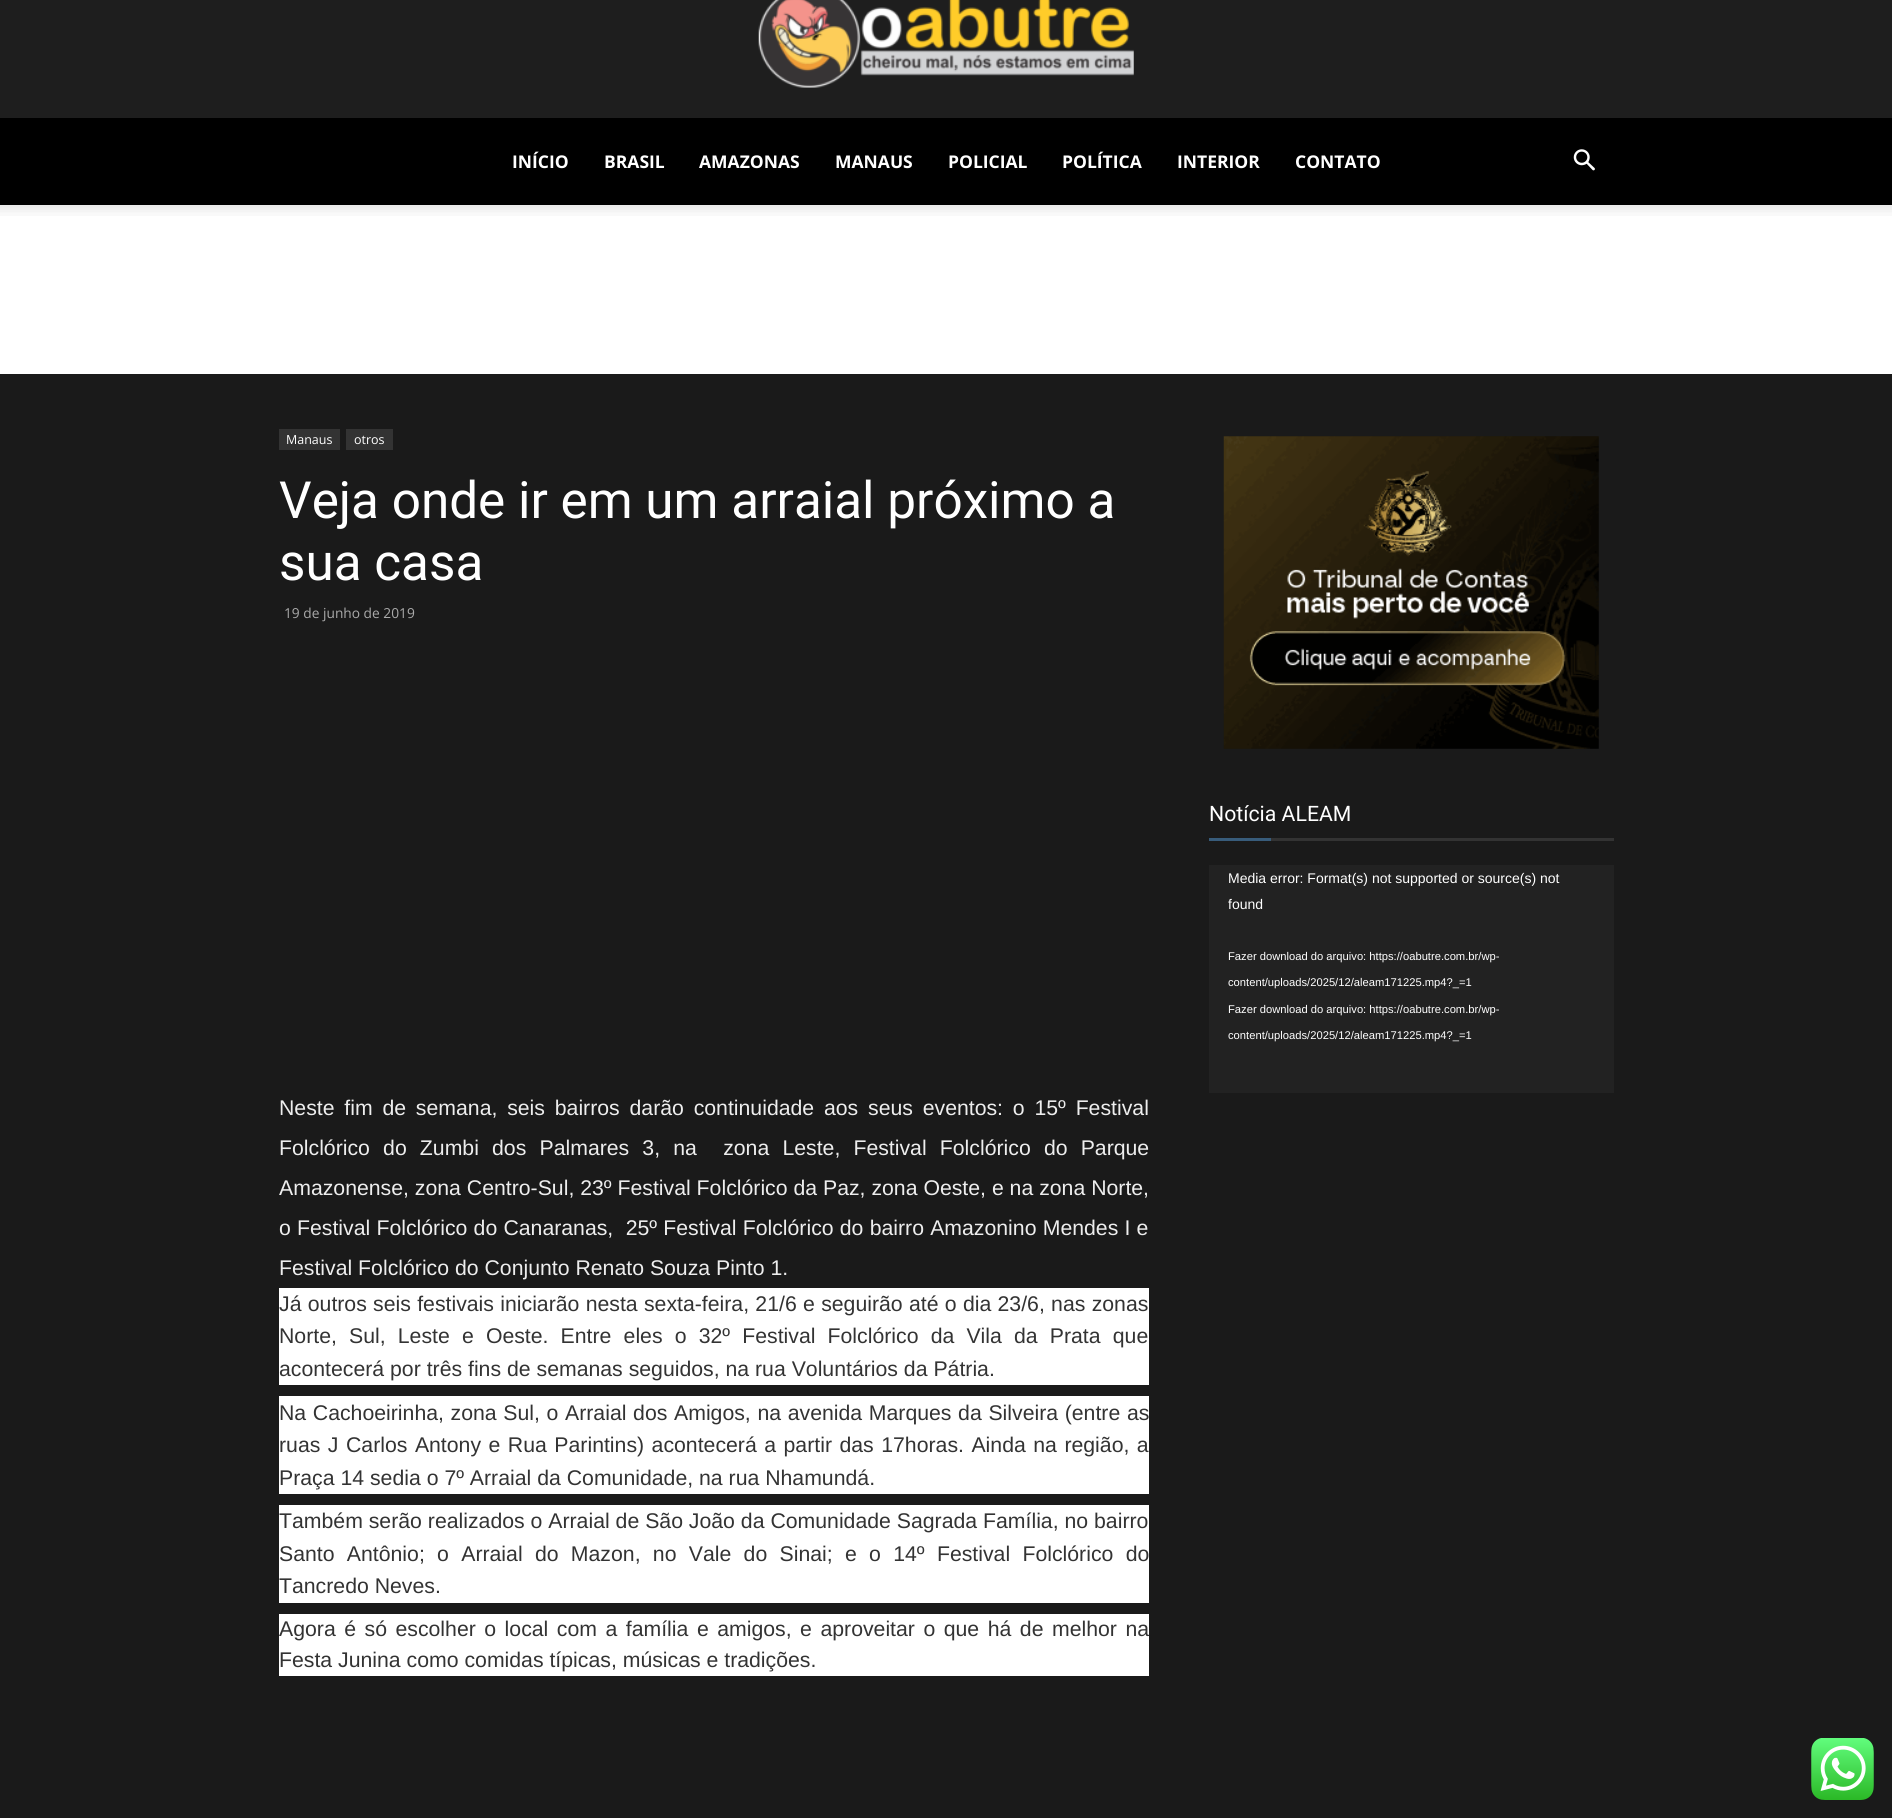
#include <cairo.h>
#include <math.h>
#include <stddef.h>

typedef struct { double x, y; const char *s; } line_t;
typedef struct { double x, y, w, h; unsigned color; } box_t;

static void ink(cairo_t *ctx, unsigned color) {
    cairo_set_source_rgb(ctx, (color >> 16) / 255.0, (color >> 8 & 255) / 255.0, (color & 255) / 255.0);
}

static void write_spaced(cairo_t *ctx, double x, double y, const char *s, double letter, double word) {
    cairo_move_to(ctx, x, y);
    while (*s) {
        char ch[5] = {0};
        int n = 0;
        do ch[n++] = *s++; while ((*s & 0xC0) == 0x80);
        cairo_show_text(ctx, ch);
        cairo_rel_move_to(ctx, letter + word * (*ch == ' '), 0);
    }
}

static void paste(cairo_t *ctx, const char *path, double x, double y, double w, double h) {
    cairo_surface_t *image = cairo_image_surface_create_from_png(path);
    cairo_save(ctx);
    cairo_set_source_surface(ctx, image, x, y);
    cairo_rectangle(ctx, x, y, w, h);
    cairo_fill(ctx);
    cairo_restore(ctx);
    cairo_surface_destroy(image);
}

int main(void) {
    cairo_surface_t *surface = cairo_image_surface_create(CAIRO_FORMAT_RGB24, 1892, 1818);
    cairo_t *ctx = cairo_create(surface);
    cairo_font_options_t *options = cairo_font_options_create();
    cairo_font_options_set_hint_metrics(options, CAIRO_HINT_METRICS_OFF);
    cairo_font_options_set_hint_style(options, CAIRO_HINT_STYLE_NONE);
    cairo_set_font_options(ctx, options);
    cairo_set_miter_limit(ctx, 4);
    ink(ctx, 0x1A1A1A);
    cairo_paint(ctx);
    ink(ctx, 0x1E1E1E);
    cairo_rectangle(ctx, 0, 0, 1892, 118);
    cairo_fill(ctx);
    paste(ctx, "media/1.png", 758, 0, 376, 88);
    ink(ctx, 0x000000);
    cairo_rectangle(ctx, 0, 118, 1892, 87);
    cairo_fill(ctx);
    cairo_select_font_face(ctx, "Open Sans", CAIRO_FONT_SLANT_NORMAL, CAIRO_FONT_WEIGHT_BOLD);
    cairo_set_font_size(ctx, 17.5);
    ink(ctx, 0xFFFFFF);
    {
        static const line_t items[] = {
            {512, 168, "INÍCIO"},
            {604, 168, "BRASIL"},
            {699, 168, "AMAZONAS"},
            {835, 168, "MANAUS"},
            {948, 168, "POLICIAL"},
            {1062, 168, "POLÍTICA"},
            {1177, 168, "INTERIOR"},
            {1295, 168, "CONTATO"},
        };
        for (size_t i = 0; i < sizeof items / sizeof *items; i++) {
            cairo_move_to(ctx, items[i].x, items[i].y);
            cairo_show_text(ctx, items[i].s);
        }
    }
    paste(ctx, "media/2.png", 1573, 149, 22, 22);
    cairo_rectangle(ctx, 0, 205, 1892, 169);
    cairo_fill(ctx);
    paste(ctx, "media/3.png", 0, 205, 1892, 11);
    ink(ctx, 0x333333);
    cairo_rectangle(ctx, 279, 429, 61, 21);
    cairo_fill(ctx);
    cairo_select_font_face(ctx, "Open Sans", CAIRO_FONT_SLANT_NORMAL, CAIRO_FONT_WEIGHT_NORMAL);
    cairo_set_font_size(ctx, 12.5);
    ink(ctx, 0xFFFFFF);
    cairo_move_to(ctx, 286, 444);
    cairo_show_text(ctx, "Manaus");
    ink(ctx, 0x333333);
    cairo_rectangle(ctx, 346, 429, 47, 21);
    cairo_fill(ctx);
    ink(ctx, 0xFFFFFF);
    cairo_move_to(ctx, 354, 444);
    cairo_show_text(ctx, "otros");
    cairo_select_font_face(ctx, "Roboto", CAIRO_FONT_SLANT_NORMAL, CAIRO_FONT_WEIGHT_NORMAL);
    cairo_set_font_size(ctx, 51.25);
    cairo_move_to(ctx, 279, 518);
    cairo_show_text(ctx, "Veja onde ir em um arraial próximo a");
    cairo_move_to(ctx, 279, 580);
    cairo_show_text(ctx, "sua casa");
    cairo_select_font_face(ctx, "Open Sans", CAIRO_FONT_SLANT_NORMAL, CAIRO_FONT_WEIGHT_NORMAL);
    cairo_set_font_size(ctx, 13.75);
    ink(ctx, 0xAAAAAA);
    cairo_move_to(ctx, 284, 618);
    cairo_show_text(ctx, "19 de junho de 2019");
    cairo_select_font_face(ctx, "Liberation Sans", CAIRO_FONT_SLANT_NORMAL, CAIRO_FONT_WEIGHT_NORMAL);
    cairo_set_font_size(ctx, 21.25);
    ink(ctx, 0xEEEEEE);
    write_spaced(ctx, 279, 1115, "Neste fim de semana, seis bairros darão continuidade aos seus eventos: o 15º Festival", 0, 3.9);
    write_spaced(ctx, 279, 1155, "Folclórico do Zumbi dos Palmares 3, na  zona Leste, Festival Folclórico do Parque", 0, 7.25);
    cairo_move_to(ctx, 279, 1195);
    cairo_show_text(ctx, "Amazonense, zona Centro-Sul, 23º Festival Folclórico da Paz, zona Oeste, e na zona Norte,");
    write_spaced(ctx, 279, 1235, "o Festival Folclórico do Canaranas,  25º Festival Folclórico do bairro Amazonino Mendes I e", 0, 0.3);
    cairo_move_to(ctx, 279, 1275);
    cairo_show_text(ctx, "Festival Folclórico do Conjunto Renato Souza Pinto 1.");
    ink(ctx, 0xFFFFFF);
    cairo_rectangle(ctx, 279, 1288, 870, 97);
    cairo_fill(ctx);
    ink(ctx, 0x333333);
    write_spaced(ctx, 279, 1311, "Já outros seis festivais iniciarão nesta sexta-feira, 21/6 e seguirão até o dia 23/6, nas zonas", 0, 0.4);
    write_spaced(ctx, 279, 1343, "Norte, Sul, Leste e Oeste. Entre eles o 32º Festival Folclórico da Vila da Prata que", 0, 6.25);
    cairo_move_to(ctx, 279, 1376);
    cairo_show_text(ctx, "acontecerá por três fins de semanas seguidos, na rua Voluntários da Pátria.");
    ink(ctx, 0xFFFFFF);
    cairo_rectangle(ctx, 279, 1396, 870, 98);
    cairo_fill(ctx);
    ink(ctx, 0x333333);
    write_spaced(ctx, 279, 1420, "Na Cachoeirinha, zona Sul, o Arraial dos Amigos, na avenida Marques da Silveira (entre as", 0, 0.75);
    write_spaced(ctx, 279, 1452, "ruas J Carlos Antony e Rua Parintins) acontecerá a partir das 17horas. Ainda na região, a", 0, 1.6);
    cairo_move_to(ctx, 279, 1485);
    cairo_show_text(ctx, "Praça 14 sedia o 7º Arraial da Comunidade, na rua Nhamundá.");
    ink(ctx, 0xFFFFFF);
    cairo_rectangle(ctx, 279, 1505, 870, 98);
    cairo_fill(ctx);
    ink(ctx, 0x333333);
    cairo_move_to(ctx, 279, 1528);
    cairo_show_text(ctx, "Também serão realizados o Arraial de São João da Comunidade Sagrada Família, no bairro");
    write_spaced(ctx, 279, 1561, "Santo Antônio; o Arraial do Mazon, no Vale do Sinai; e o 14º Festival Folclórico do", 0, 6.4);
    cairo_move_to(ctx, 279, 1593);
    cairo_show_text(ctx, "Tancredo Neves.");
    ink(ctx, 0xFFFFFF);
    cairo_rectangle(ctx, 279, 1614, 870, 62);
    cairo_fill(ctx);
    ink(ctx, 0x333333);
    write_spaced(ctx, 279, 1636, "Agora é só escolher o local com a família e amigos, e aproveitar o que há de melhor na", 0, 2.6);
    cairo_move_to(ctx, 279, 1667);
    cairo_show_text(ctx, "Festa Junina como comidas típicas, músicas e tradições.");
    paste(ctx, "media/4.png", 1223, 436, 376, 313);
    cairo_select_font_face(ctx, "Roboto", CAIRO_FONT_SLANT_NORMAL, CAIRO_FONT_WEIGHT_NORMAL);
    ink(ctx, 0xFFFFFF);
    cairo_move_to(ctx, 1209, 821);
    cairo_show_text(ctx, "Notícia ALEAM");
    {
        static const box_t items[] = {
            {1209, 838, 62, 3, 0x385C7B},
            {1271, 838, 343, 3, 0x333333},
            {1209, 865, 405, 228, 0x222222},
        };
        for (size_t i = 0; i < sizeof items / sizeof *items; i++) {
            ink(ctx, items[i].color);
            cairo_rectangle(ctx, items[i].x, items[i].y, items[i].w, items[i].h);
            cairo_fill(ctx);
        }
    }
    cairo_select_font_face(ctx, "Liberation Sans", CAIRO_FONT_SLANT_NORMAL, CAIRO_FONT_WEIGHT_NORMAL);
    cairo_set_font_size(ctx, 14);
    ink(ctx, 0xFFFFFF);
    cairo_move_to(ctx, 1228, 883);
    cairo_show_text(ctx, "Media error: Format(s) not supported or source(s) not");
    cairo_move_to(ctx, 1228, 909);
    cairo_show_text(ctx, "found");
    cairo_set_font_size(ctx, 11.2);
    {
        static const line_t items[] = {
            {1228, 960, "Fazer download do arquivo: https://oabutre.com.br/wp-"},
            {1228, 986, "content/uploads/2025/12/aleam171225.mp4?_=1"},
            {1228, 1013, "Fazer download do arquivo: https://oabutre.com.br/wp-"},
            {1228, 1039, "content/uploads/2025/12/aleam171225.mp4?_=1"},
        };
        for (size_t i = 0; i < sizeof items / sizeof *items; i++) {
            cairo_move_to(ctx, items[i].x, items[i].y);
            cairo_show_text(ctx, items[i].s);
        }
    }
    paste(ctx, "media/5.png", 1811, 1738, 63, 62);
    cairo_surface_write_to_png(surface, "image.png");
    cairo_font_options_destroy(options);
    cairo_destroy(ctx);
    cairo_surface_destroy(surface);
    return 0;
}
